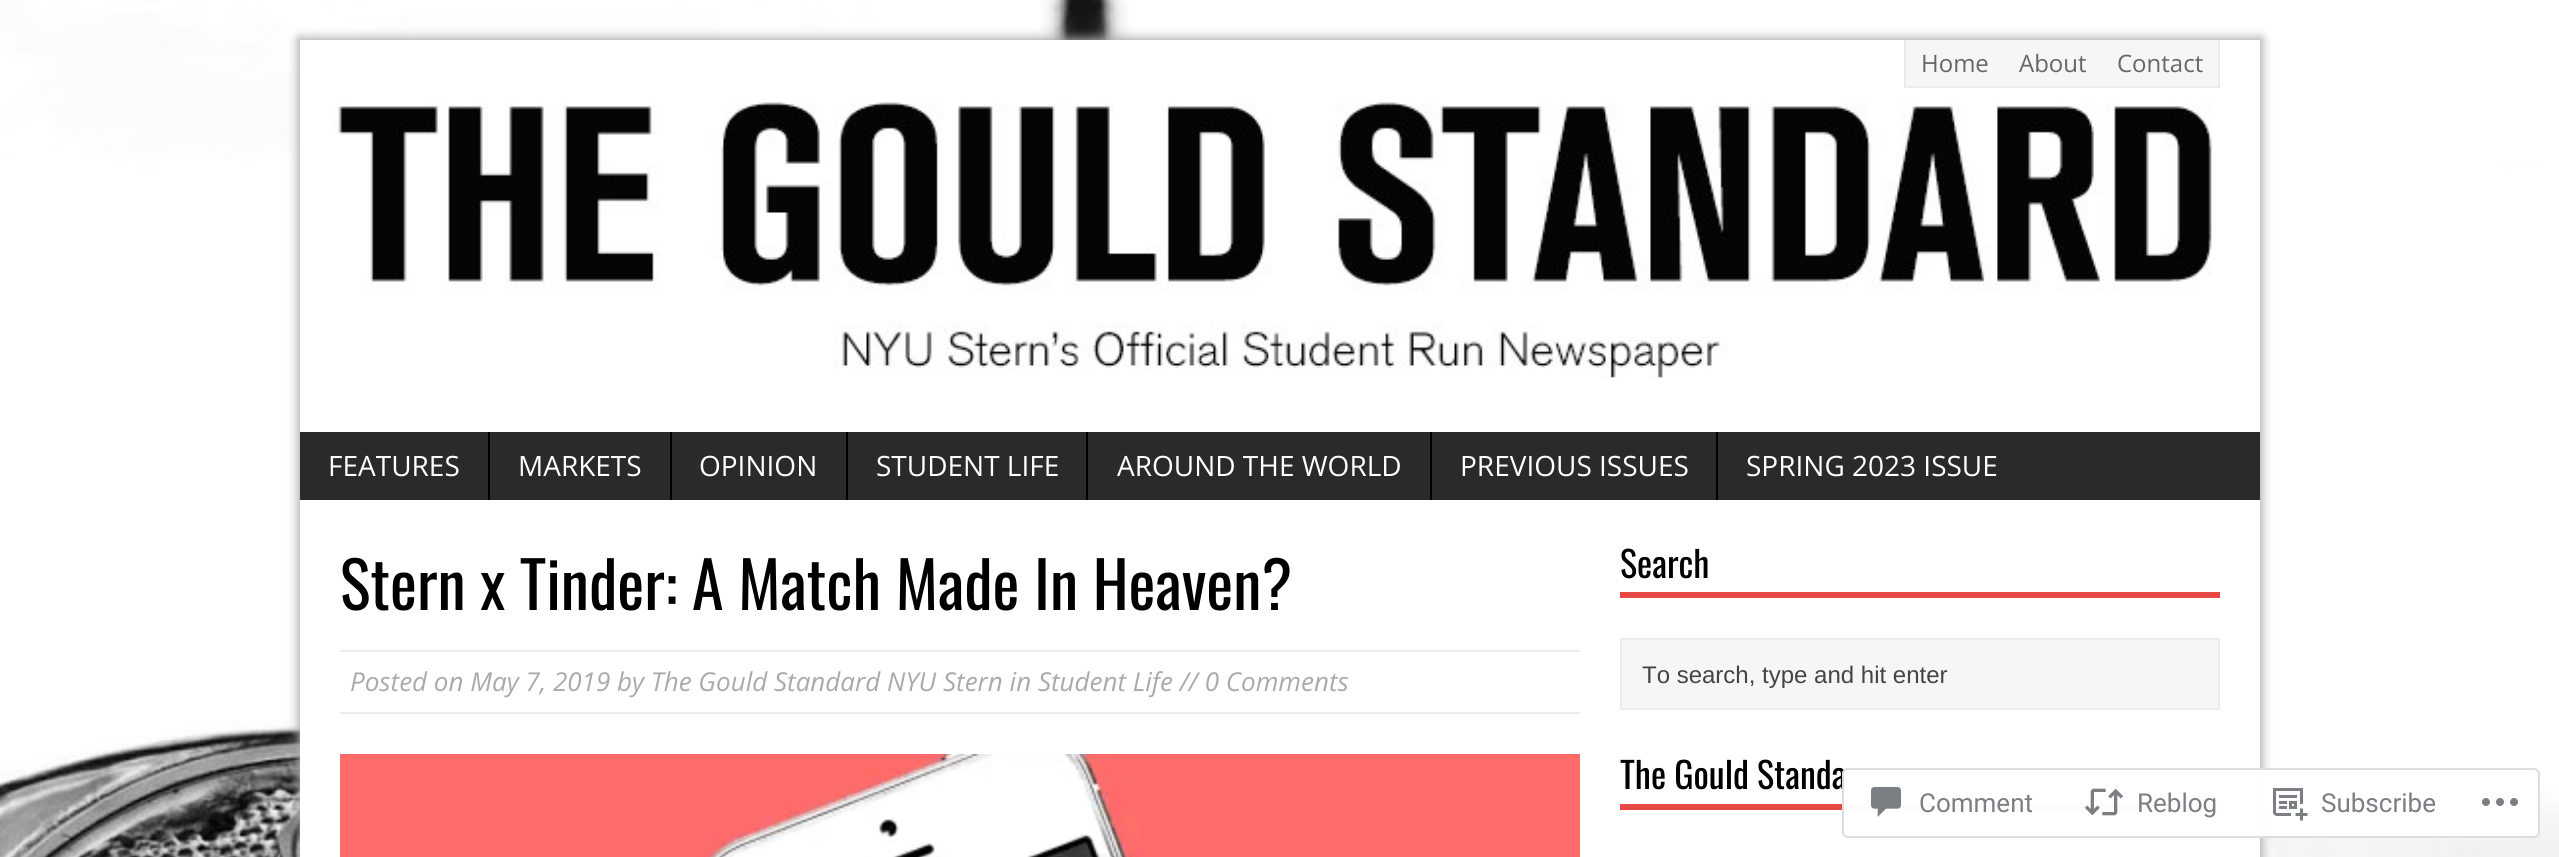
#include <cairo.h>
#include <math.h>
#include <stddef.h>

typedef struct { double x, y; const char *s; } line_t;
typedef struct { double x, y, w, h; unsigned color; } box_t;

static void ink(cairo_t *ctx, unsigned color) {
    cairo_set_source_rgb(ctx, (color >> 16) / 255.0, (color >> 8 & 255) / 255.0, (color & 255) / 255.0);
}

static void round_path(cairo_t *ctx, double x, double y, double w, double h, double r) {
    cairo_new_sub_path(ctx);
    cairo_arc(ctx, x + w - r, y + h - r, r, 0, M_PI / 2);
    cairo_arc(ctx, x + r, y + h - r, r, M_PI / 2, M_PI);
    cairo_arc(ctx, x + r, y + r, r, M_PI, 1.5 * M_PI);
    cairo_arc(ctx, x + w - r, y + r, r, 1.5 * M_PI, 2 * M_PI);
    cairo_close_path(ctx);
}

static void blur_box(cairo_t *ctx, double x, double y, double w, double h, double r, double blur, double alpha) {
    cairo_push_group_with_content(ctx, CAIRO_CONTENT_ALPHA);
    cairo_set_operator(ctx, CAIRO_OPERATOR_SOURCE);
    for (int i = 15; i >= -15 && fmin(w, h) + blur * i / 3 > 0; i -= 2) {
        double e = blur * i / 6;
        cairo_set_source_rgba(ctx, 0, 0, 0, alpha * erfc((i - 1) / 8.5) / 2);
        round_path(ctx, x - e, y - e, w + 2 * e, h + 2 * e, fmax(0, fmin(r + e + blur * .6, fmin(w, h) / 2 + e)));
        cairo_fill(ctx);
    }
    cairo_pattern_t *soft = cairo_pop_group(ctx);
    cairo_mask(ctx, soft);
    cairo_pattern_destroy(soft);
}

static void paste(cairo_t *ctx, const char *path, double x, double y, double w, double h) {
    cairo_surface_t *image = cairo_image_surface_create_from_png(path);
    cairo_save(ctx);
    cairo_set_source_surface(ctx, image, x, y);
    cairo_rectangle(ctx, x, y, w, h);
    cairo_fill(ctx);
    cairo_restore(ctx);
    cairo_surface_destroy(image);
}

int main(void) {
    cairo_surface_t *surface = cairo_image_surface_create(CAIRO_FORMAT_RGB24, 2559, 857);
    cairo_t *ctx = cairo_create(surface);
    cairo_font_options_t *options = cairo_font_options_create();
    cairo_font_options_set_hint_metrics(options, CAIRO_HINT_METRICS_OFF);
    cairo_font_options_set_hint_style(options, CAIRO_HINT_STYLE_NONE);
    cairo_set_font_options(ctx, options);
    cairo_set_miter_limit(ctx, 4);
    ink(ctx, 0xFFFFFF);
    cairo_paint(ctx);
    paste(ctx, "media/1.png", 0, 0, 2559, 857);
    ink(ctx, 0xA8A8A8);
    blur_box(ctx, 298, 38, 1964, 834, 0, 5, 1);
    {
        static const box_t items[] = {
            {300, 40, 1960, 392, 0xFFFFFF},
            {1906, 40, 312, 46, 0xF6F6F6},
            {2218, 40, 2, 48, 0xEBEBEB},
            {1904, 86, 316, 2, 0xEBEBEB},
            {1904, 40, 2, 48, 0xEBEBEB},
        };
        for (size_t i = 0; i < sizeof items / sizeof *items; i++) {
            ink(ctx, items[i].color);
            cairo_rectangle(ctx, items[i].x, items[i].y, items[i].w, items[i].h);
            cairo_fill(ctx);
        }
    }
    cairo_select_font_face(ctx, "Open Sans", CAIRO_FONT_SLANT_NORMAL, CAIRO_FONT_WEIGHT_NORMAL);
    cairo_set_font_size(ctx, 24);
    ink(ctx, 0x666666);
    {
        static const line_t items[] = {
            {1921, 72, "Home"},
            {2019, 72, "About"},
            {2117, 72, "Contact"},
        };
        for (size_t i = 0; i < sizeof items / sizeof *items; i++) {
            cairo_move_to(ctx, items[i].x, items[i].y);
            cairo_show_text(ctx, items[i].s);
        }
    }
    paste(ctx, "media/2.png", 332, 102, 1881, 277);
    ink(ctx, 0x2A2A2A);
    cairo_rectangle(ctx, 300, 432, 1960, 68);
    cairo_fill(ctx);
    cairo_set_font_size(ctx, 28);
    ink(ctx, 0xFFFFFF);
    cairo_move_to(ctx, 328, 476);
    cairo_show_text(ctx, "FEATURES");
    ink(ctx, 0x000000);
    cairo_rectangle(ctx, 488, 432, 2, 68);
    cairo_fill(ctx);
    ink(ctx, 0xFFFFFF);
    cairo_move_to(ctx, 518, 476);
    cairo_show_text(ctx, "MARKETS");
    ink(ctx, 0x000000);
    cairo_rectangle(ctx, 670, 432, 2, 68);
    cairo_fill(ctx);
    ink(ctx, 0xFFFFFF);
    cairo_move_to(ctx, 699, 476);
    cairo_show_text(ctx, "OPINION");
    ink(ctx, 0x000000);
    cairo_rectangle(ctx, 846, 432, 2, 68);
    cairo_fill(ctx);
    ink(ctx, 0xFFFFFF);
    cairo_move_to(ctx, 876, 476);
    cairo_show_text(ctx, "STUDENT LIFE");
    ink(ctx, 0x000000);
    cairo_rectangle(ctx, 1086, 432, 2, 68);
    cairo_fill(ctx);
    ink(ctx, 0xFFFFFF);
    cairo_move_to(ctx, 1117, 476);
    cairo_show_text(ctx, "AROUND THE WORLD");
    ink(ctx, 0x000000);
    cairo_rectangle(ctx, 1430, 432, 2, 68);
    cairo_fill(ctx);
    ink(ctx, 0xFFFFFF);
    cairo_move_to(ctx, 1460, 476);
    cairo_show_text(ctx, "PREVIOUS ISSUES");
    ink(ctx, 0x000000);
    cairo_rectangle(ctx, 1716, 432, 2, 68);
    cairo_fill(ctx);
    ink(ctx, 0xFFFFFF);
    cairo_move_to(ctx, 1746, 476);
    cairo_show_text(ctx, "SPRING 2023 ISSUE");
    cairo_rectangle(ctx, 300, 500, 1960, 357);
    cairo_fill(ctx);
    cairo_select_font_face(ctx, "Oswald", CAIRO_FONT_SLANT_NORMAL, CAIRO_FONT_WEIGHT_NORMAL);
    cairo_set_font_size(ctx, 64);
    ink(ctx, 0x000000);
    cairo_move_to(ctx, 340, 610);
    cairo_show_text(ctx, "Stern x Tinder: A Match Made In Heaven?");
    ink(ctx, 0xEBEBEB);
    cairo_rectangle(ctx, 340, 650, 1240, 2);
    cairo_fill(ctx);
    cairo_rectangle(ctx, 340, 712, 1240, 2);
    cairo_fill(ctx);
    cairo_select_font_face(ctx, "Open Sans", CAIRO_FONT_SLANT_ITALIC, CAIRO_FONT_WEIGHT_NORMAL);
    cairo_set_font_size(ctx, 26);
    ink(ctx, 0xAAAAAA);
    cairo_move_to(ctx, 350, 691);
    cairo_show_text(ctx, "Posted on May 7, 2019 by The Gould Standard NYU Stern in Student Life // 0 Comments");
    paste(ctx, "media/3.png", 340, 754, 1240, 103);
    ink(ctx, 0xE64946);
    cairo_rectangle(ctx, 1620, 592, 600, 6);
    cairo_fill(ctx);
    cairo_select_font_face(ctx, "Oswald", CAIRO_FONT_SLANT_NORMAL, CAIRO_FONT_WEIGHT_NORMAL);
    cairo_set_font_size(ctx, 36);
    ink(ctx, 0x000000);
    cairo_move_to(ctx, 1620, 578);
    cairo_show_text(ctx, "Search");
    ink(ctx, 0xF6F6F6);
    cairo_rectangle(ctx, 1621, 639, 598, 70);
    cairo_fill_preserve(ctx);
    ink(ctx, 0xEBEBEB);
    cairo_stroke(ctx);
    cairo_select_font_face(ctx, "Liberation Sans", CAIRO_FONT_SLANT_NORMAL, CAIRO_FONT_WEIGHT_NORMAL);
    cairo_set_font_size(ctx, 24);
    ink(ctx, 0x444444);
    cairo_move_to(ctx, 1642, 683);
    cairo_show_text(ctx, "To search, type and hit enter");
    ink(ctx, 0xE64946);
    cairo_rectangle(ctx, 1620, 804, 600, 6);
    cairo_fill(ctx);
    cairo_select_font_face(ctx, "Oswald", CAIRO_FONT_SLANT_NORMAL, CAIRO_FONT_WEIGHT_NORMAL);
    cairo_set_font_size(ctx, 36);
    ink(ctx, 0x000000);
    cairo_move_to(ctx, 1620, 789);
    cairo_show_text(ctx, "The Gould Standa");
    cairo_set_source_rgba(ctx, 1, 1, 1, 0.98);
    round_path(ctx, 1842, 768, 698, 70, 6);
    cairo_fill(ctx);
    round_path(ctx, 1843, 769, 696, 68, 5);
    cairo_set_source_rgba(ctx, 0.863, 0.863, 0.871, 0.98);
    cairo_stroke(ctx);
    paste(ctx, "media/4.png", 1871, 787, 30, 30);
    cairo_select_font_face(ctx, "Roboto", CAIRO_FONT_SLANT_NORMAL, CAIRO_FONT_WEIGHT_NORMAL);
    cairo_set_font_size(ctx, 26);
    ink(ctx, 0x7B7F84);
    cairo_move_to(ctx, 1919, 812);
    cairo_show_text(ctx, "Comment");
    paste(ctx, "media/5.png", 2084, 788, 40, 28);
    cairo_move_to(ctx, 2137, 812);
    cairo_show_text(ctx, "Reblog");
    paste(ctx, "media/6.png", 2273, 788, 35, 33);
    cairo_move_to(ctx, 2321, 812);
    cairo_show_text(ctx, "Subscribe");
    paste(ctx, "media/7.png", 2482, 798, 36, 8);
    cairo_surface_write_to_png(surface, "image.png");
    cairo_font_options_destroy(options);
    cairo_destroy(ctx);
    cairo_surface_destroy(surface);
    return 0;
}
